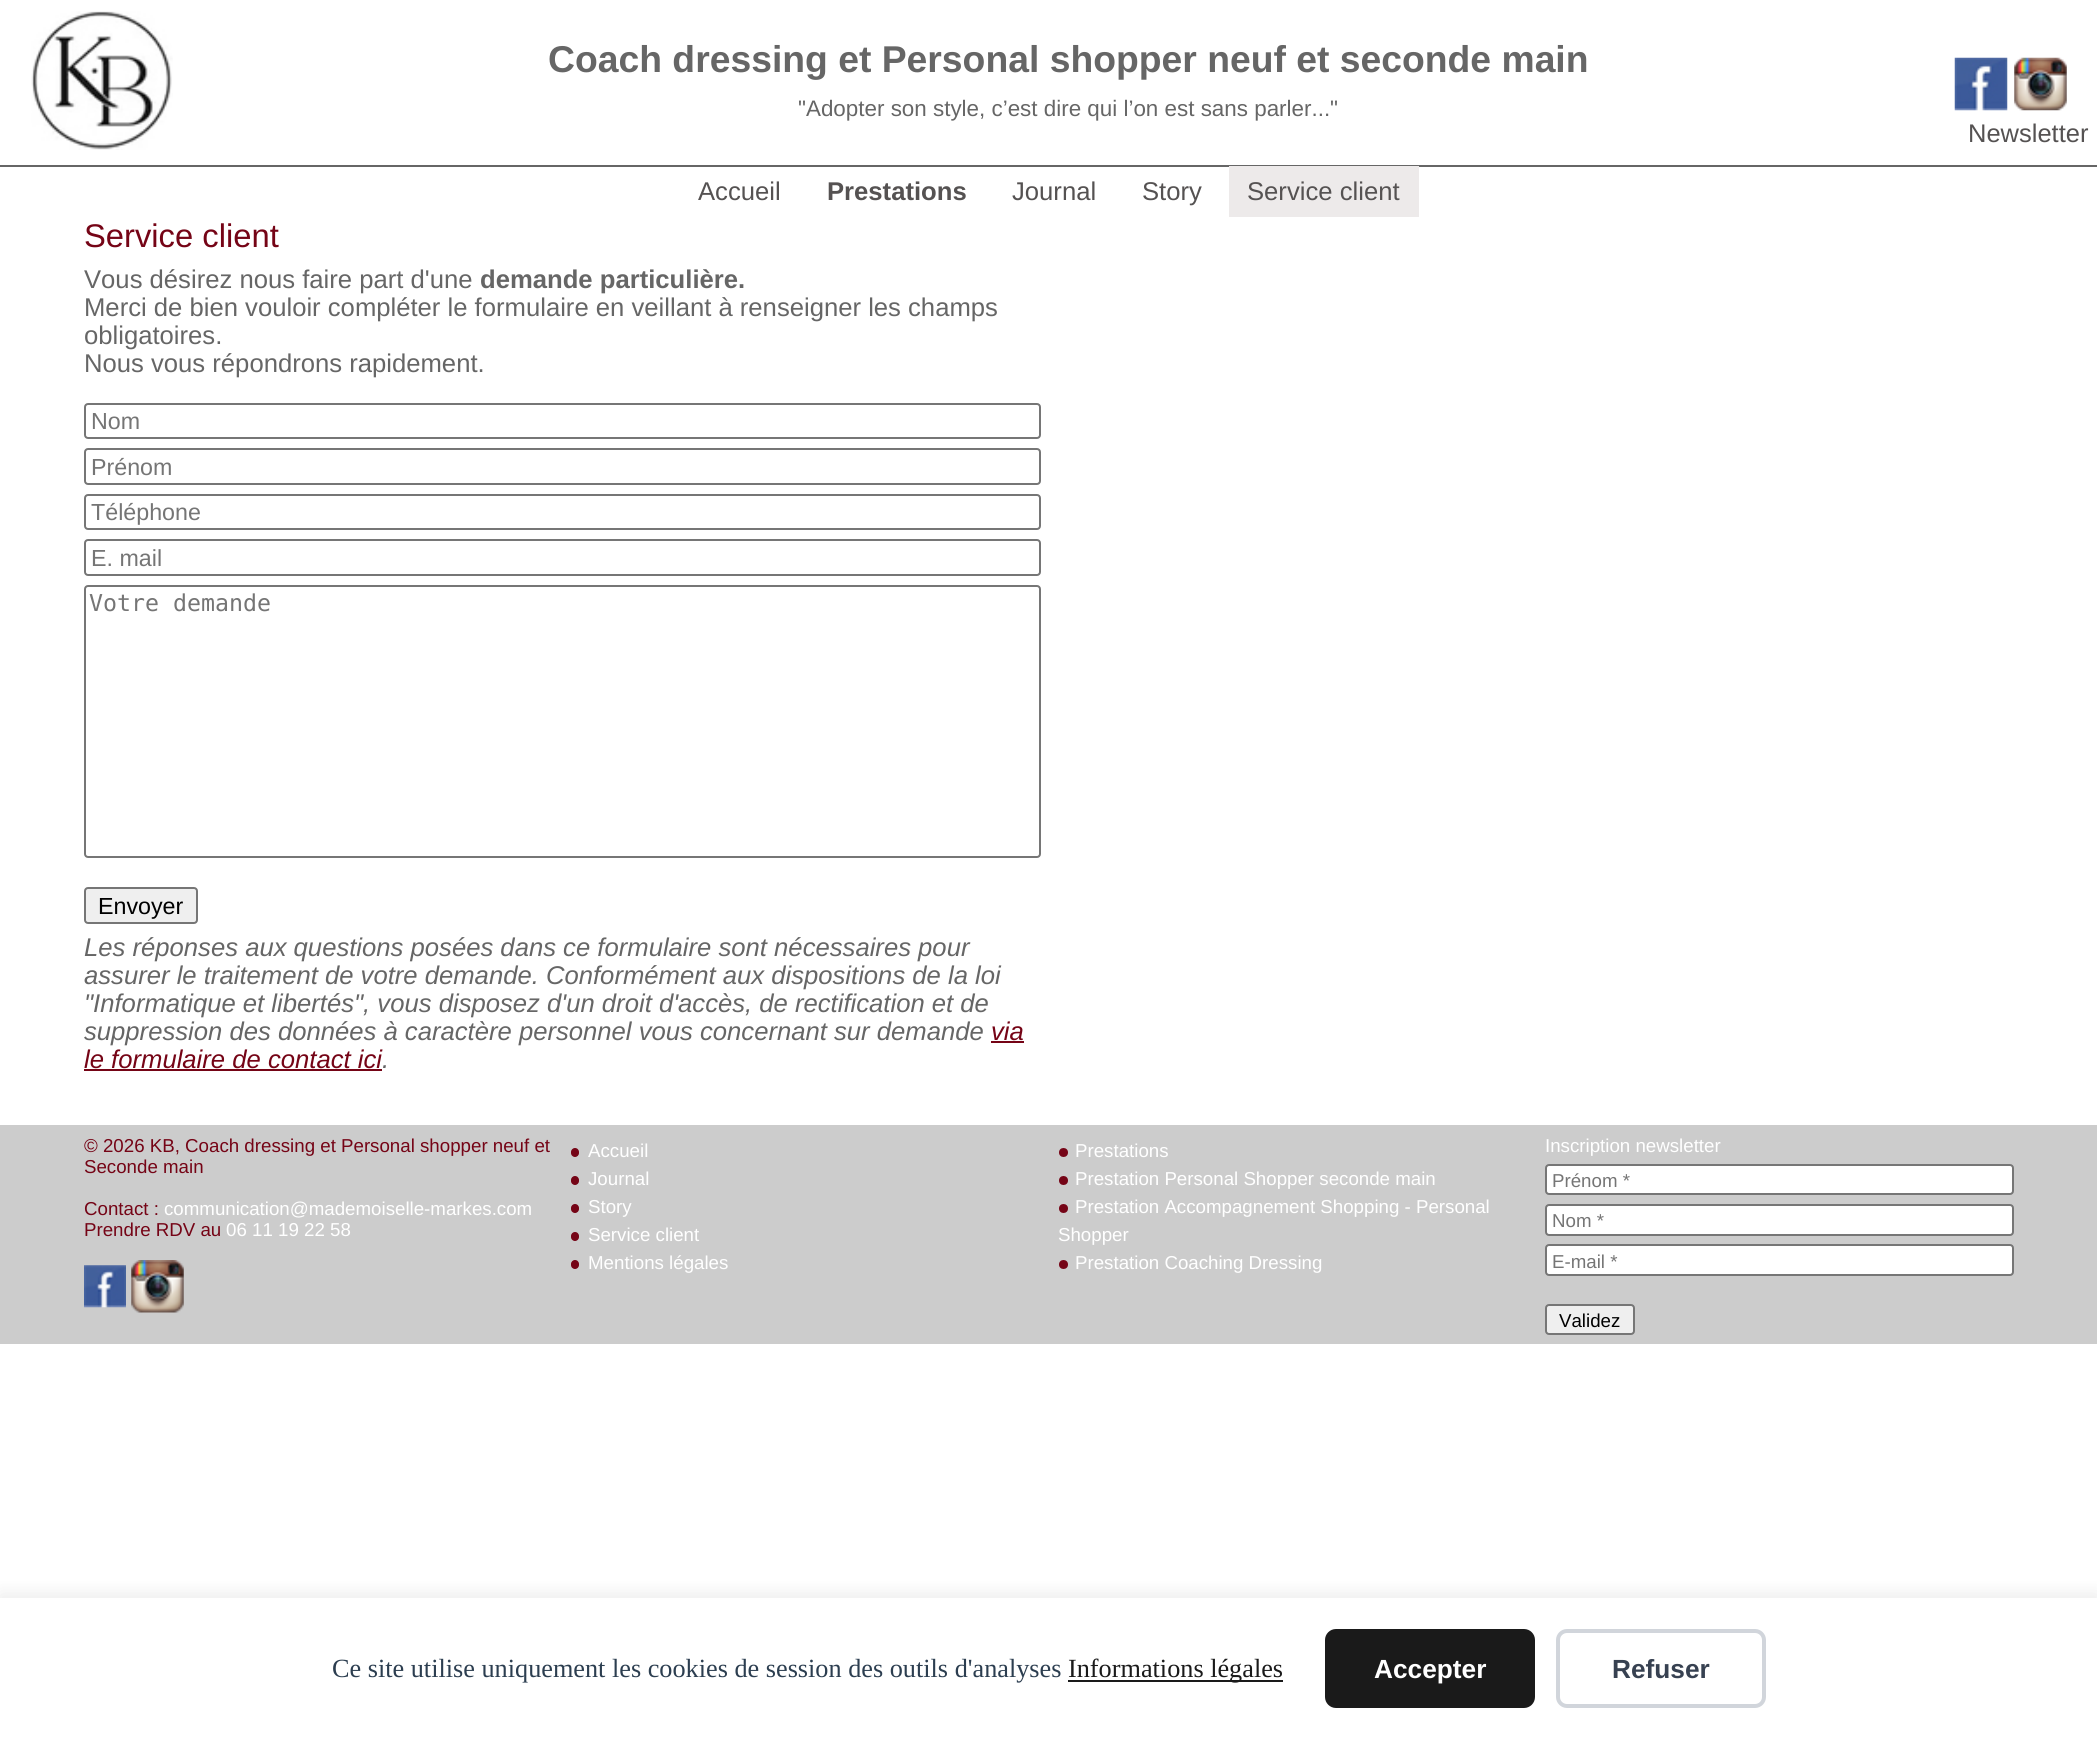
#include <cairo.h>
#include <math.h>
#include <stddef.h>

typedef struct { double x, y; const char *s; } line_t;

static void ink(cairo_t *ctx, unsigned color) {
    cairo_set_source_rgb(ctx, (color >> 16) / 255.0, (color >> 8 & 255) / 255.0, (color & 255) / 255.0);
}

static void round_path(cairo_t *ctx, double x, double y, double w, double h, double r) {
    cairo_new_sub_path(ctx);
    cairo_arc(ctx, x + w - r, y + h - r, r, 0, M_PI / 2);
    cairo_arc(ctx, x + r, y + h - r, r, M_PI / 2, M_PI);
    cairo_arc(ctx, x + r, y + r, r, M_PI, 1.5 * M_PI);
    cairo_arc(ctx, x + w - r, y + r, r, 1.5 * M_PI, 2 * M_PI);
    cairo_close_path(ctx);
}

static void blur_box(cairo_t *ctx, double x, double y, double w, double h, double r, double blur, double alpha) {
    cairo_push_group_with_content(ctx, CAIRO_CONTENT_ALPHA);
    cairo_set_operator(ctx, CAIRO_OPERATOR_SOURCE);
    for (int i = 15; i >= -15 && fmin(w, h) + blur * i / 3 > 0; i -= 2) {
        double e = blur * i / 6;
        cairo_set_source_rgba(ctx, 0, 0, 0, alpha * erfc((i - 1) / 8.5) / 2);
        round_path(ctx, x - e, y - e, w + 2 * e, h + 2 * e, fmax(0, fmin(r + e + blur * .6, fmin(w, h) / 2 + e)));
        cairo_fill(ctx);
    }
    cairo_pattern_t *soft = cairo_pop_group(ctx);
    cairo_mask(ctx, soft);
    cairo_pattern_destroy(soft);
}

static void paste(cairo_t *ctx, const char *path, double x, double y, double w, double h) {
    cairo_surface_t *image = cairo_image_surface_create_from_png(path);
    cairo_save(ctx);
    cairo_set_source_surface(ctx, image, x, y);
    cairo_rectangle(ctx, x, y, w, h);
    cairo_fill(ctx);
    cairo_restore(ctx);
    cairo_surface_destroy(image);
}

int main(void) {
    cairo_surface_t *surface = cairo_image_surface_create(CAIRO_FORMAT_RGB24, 2097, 1738);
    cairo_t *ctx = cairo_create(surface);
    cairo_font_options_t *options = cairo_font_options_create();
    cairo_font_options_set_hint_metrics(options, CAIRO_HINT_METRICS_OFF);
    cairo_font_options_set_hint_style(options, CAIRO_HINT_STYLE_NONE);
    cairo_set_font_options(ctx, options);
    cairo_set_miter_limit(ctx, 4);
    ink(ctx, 0xFFFFFF);
    cairo_paint(ctx);
    ink(ctx, 0x666666);
    cairo_rectangle(ctx, 0, 165, 2097, 2);
    cairo_fill(ctx);
    paste(ctx, "media/1.png", 31, 11, 142, 139);
    cairo_select_font_face(ctx, "Liberation Sans", CAIRO_FONT_SLANT_NORMAL, CAIRO_FONT_WEIGHT_BOLD);
    cairo_set_font_size(ctx, 37.3);
    cairo_move_to(ctx, 548, 72);
    cairo_show_text(ctx, "Coach dressing et Personal shopper neuf et seconde main");
    cairo_select_font_face(ctx, "Liberation Sans", CAIRO_FONT_SLANT_NORMAL, CAIRO_FONT_WEIGHT_NORMAL);
    cairo_set_font_size(ctx, 22.4);
    cairo_move_to(ctx, 798, 116);
    cairo_show_text(ctx, "\"Adopter son style, c’est dire qui l’on est sans parler...\"");
    paste(ctx, "media/2.png", 1954, 57, 54, 54);
    paste(ctx, "media/3.png", 2014, 57, 53, 54);
    cairo_set_font_size(ctx, 25.5);
    ink(ctx, 0x555252);
    cairo_move_to(ctx, 1968, 142);
    cairo_show_text(ctx, "Newsletter");
    cairo_set_font_size(ctx, 25.65);
    cairo_move_to(ctx, 698, 200);
    cairo_show_text(ctx, "Accueil");
    cairo_select_font_face(ctx, "Liberation Sans", CAIRO_FONT_SLANT_NORMAL, CAIRO_FONT_WEIGHT_BOLD);
    cairo_move_to(ctx, 827, 200);
    cairo_show_text(ctx, "Prestations");
    cairo_select_font_face(ctx, "Liberation Sans", CAIRO_FONT_SLANT_NORMAL, CAIRO_FONT_WEIGHT_NORMAL);
    cairo_move_to(ctx, 1012, 200);
    cairo_show_text(ctx, "Journal");
    cairo_move_to(ctx, 1142, 200);
    cairo_show_text(ctx, "Story");
    ink(ctx, 0xEDEAEA);
    cairo_rectangle(ctx, 1229, 166, 190, 51);
    cairo_fill(ctx);
    ink(ctx, 0x555252);
    cairo_move_to(ctx, 1247, 200);
    cairo_show_text(ctx, "Service client");
    cairo_set_font_size(ctx, 32.75);
    ink(ctx, 0x750416);
    cairo_move_to(ctx, 84, 247);
    cairo_show_text(ctx, "Service client");
    cairo_set_font_size(ctx, 25.65);
    ink(ctx, 0x666666);
    cairo_move_to(ctx, 84, 288);
    cairo_show_text(ctx, "Vous désirez nous faire part d'une");
    cairo_select_font_face(ctx, "Liberation Sans", CAIRO_FONT_SLANT_NORMAL, CAIRO_FONT_WEIGHT_BOLD);
    cairo_move_to(ctx, 480, 288);
    cairo_show_text(ctx, "demande particulière.");
    cairo_select_font_face(ctx, "Liberation Sans", CAIRO_FONT_SLANT_NORMAL, CAIRO_FONT_WEIGHT_NORMAL);
    {
        static const line_t items[] = {
            {84, 316, "Merci de bien vouloir compléter le formulaire en veillant à renseigner les champs"},
            {84, 344, "obligatoires."},
            {84, 372, "Nous vous répondrons rapidement."},
        };
        for (size_t i = 0; i < sizeof items / sizeof *items; i++) {
            cairo_move_to(ctx, items[i].x, items[i].y);
            cairo_show_text(ctx, items[i].s);
        }
    }
    round_path(ctx, 85, 404, 955, 34, 3);
    ink(ctx, 0x767676);
    cairo_stroke(ctx);
    cairo_set_font_size(ctx, 23.25);
    ink(ctx, 0x757575);
    cairo_move_to(ctx, 91, 429);
    cairo_show_text(ctx, "Nom");
    round_path(ctx, 85, 449, 955, 35, 3);
    ink(ctx, 0x767676);
    cairo_stroke(ctx);
    ink(ctx, 0x757575);
    cairo_move_to(ctx, 91, 475);
    cairo_show_text(ctx, "Prénom");
    round_path(ctx, 85, 495, 955, 34, 3);
    ink(ctx, 0x767676);
    cairo_stroke(ctx);
    ink(ctx, 0x757575);
    cairo_move_to(ctx, 91, 520);
    cairo_show_text(ctx, "Téléphone");
    round_path(ctx, 85, 540, 955, 35, 3);
    ink(ctx, 0x767676);
    cairo_stroke(ctx);
    ink(ctx, 0x757575);
    cairo_move_to(ctx, 91, 566);
    cairo_show_text(ctx, "E. mail");
    round_path(ctx, 85, 586, 955, 271, 3);
    ink(ctx, 0x767676);
    cairo_stroke(ctx);
    cairo_select_font_face(ctx, "DejaVu Sans Mono", CAIRO_FONT_SLANT_NORMAL, CAIRO_FONT_WEIGHT_NORMAL);
    ink(ctx, 0x757575);
    cairo_move_to(ctx, 89, 611);
    cairo_show_text(ctx, "Votre demande");
    ink(ctx, 0xEFEFEF);
    round_path(ctx, 85, 888, 112, 35, 3);
    cairo_fill_preserve(ctx);
    ink(ctx, 0x767676);
    cairo_stroke(ctx);
    cairo_select_font_face(ctx, "Liberation Sans", CAIRO_FONT_SLANT_NORMAL, CAIRO_FONT_WEIGHT_NORMAL);
    ink(ctx, 0x000000);
    cairo_move_to(ctx, 98, 914);
    cairo_show_text(ctx, "Envoyer");
    cairo_select_font_face(ctx, "Liberation Sans", CAIRO_FONT_SLANT_ITALIC, CAIRO_FONT_WEIGHT_NORMAL);
    cairo_set_font_size(ctx, 25.65);
    ink(ctx, 0x666666);
    {
        static const line_t items[] = {
            {84, 956, "Les réponses aux questions posées dans ce formulaire sont nécessaires pour"},
            {84, 984, "assurer le traitement de votre demande. Conformément aux dispositions de la loi"},
            {84, 1012, "\"Informatique et libertés\", vous disposez d'un droit d'accès, de rectification et de"},
            {84, 1040, "suppression des données à caractère personnel vous concernant sur demande"},
        };
        for (size_t i = 0; i < sizeof items / sizeof *items; i++) {
            cairo_move_to(ctx, items[i].x, items[i].y);
            cairo_show_text(ctx, items[i].s);
        }
    }
    ink(ctx, 0x750416);
    cairo_move_to(ctx, 991, 1040);
    cairo_show_text(ctx, "via");
    cairo_rectangle(ctx, 991, 1041, 33, 2);
    cairo_fill(ctx);
    cairo_move_to(ctx, 84, 1068);
    cairo_show_text(ctx, "le formulaire de contact ici");
    ink(ctx, 0x666666);
    cairo_move_to(ctx, 382, 1068);
    cairo_show_text(ctx, ".");
    ink(ctx, 0x750416);
    cairo_rectangle(ctx, 84, 1069, 298, 2);
    cairo_fill(ctx);
    ink(ctx, 0xCCCCCC);
    cairo_rectangle(ctx, 0, 1125, 2097, 219);
    cairo_fill(ctx);
    cairo_select_font_face(ctx, "Liberation Sans", CAIRO_FONT_SLANT_NORMAL, CAIRO_FONT_WEIGHT_NORMAL);
    cairo_set_font_size(ctx, 18.7);
    ink(ctx, 0x750416);
    {
        static const line_t items[] = {
            {84, 1152, "© 2026 KB, Coach dressing et Personal shopper neuf et"},
            {84, 1173, "Seconde main"},
            {84, 1215, "Contact :"},
        };
        for (size_t i = 0; i < sizeof items / sizeof *items; i++) {
            cairo_move_to(ctx, items[i].x, items[i].y);
            cairo_show_text(ctx, items[i].s);
        }
    }
    ink(ctx, 0xFFFFFF);
    cairo_move_to(ctx, 164, 1215);
    cairo_show_text(ctx, "communication@mademoiselle-markes.com");
    ink(ctx, 0x750416);
    cairo_move_to(ctx, 84, 1236);
    cairo_show_text(ctx, "Prendre RDV au");
    ink(ctx, 0xFFFFFF);
    cairo_move_to(ctx, 226, 1236);
    cairo_show_text(ctx, "06 11 19 22 58");
    paste(ctx, "media/4.png", 84, 1265, 42, 43);
    paste(ctx, "media/5.png", 131, 1260, 53, 53);
    ink(ctx, 0x750416);
    round_path(ctx, 571, 1148, 8, 9, 4);
    cairo_fill(ctx);
    ink(ctx, 0xFFFFFF);
    cairo_move_to(ctx, 588, 1157);
    cairo_show_text(ctx, "Accueil");
    ink(ctx, 0x750416);
    round_path(ctx, 571, 1176, 8, 9, 4);
    cairo_fill(ctx);
    ink(ctx, 0xFFFFFF);
    cairo_move_to(ctx, 588, 1185);
    cairo_show_text(ctx, "Journal");
    ink(ctx, 0x750416);
    round_path(ctx, 571, 1204, 8, 9, 4);
    cairo_fill(ctx);
    ink(ctx, 0xFFFFFF);
    cairo_move_to(ctx, 588, 1213);
    cairo_show_text(ctx, "Story");
    ink(ctx, 0x750416);
    round_path(ctx, 571, 1232, 8, 9, 4);
    cairo_fill(ctx);
    ink(ctx, 0xFFFFFF);
    cairo_move_to(ctx, 588, 1241);
    cairo_show_text(ctx, "Service client");
    ink(ctx, 0x750416);
    round_path(ctx, 571, 1260, 8, 9, 4);
    cairo_fill(ctx);
    ink(ctx, 0xFFFFFF);
    cairo_move_to(ctx, 588, 1269);
    cairo_show_text(ctx, "Mentions légales");
    ink(ctx, 0x750416);
    cairo_new_path(ctx);
    cairo_arc(ctx, 1063.5, 1152.5, 4.5, 0, 2 * M_PI);
    cairo_fill(ctx);
    ink(ctx, 0xFFFFFF);
    cairo_move_to(ctx, 1075, 1157);
    cairo_show_text(ctx, "Prestations");
    ink(ctx, 0x750416);
    cairo_new_path(ctx);
    cairo_arc(ctx, 1063.5, 1180.5, 4.5, 0, 2 * M_PI);
    cairo_fill(ctx);
    ink(ctx, 0xFFFFFF);
    cairo_move_to(ctx, 1075, 1185);
    cairo_show_text(ctx, "Prestation Personal Shopper seconde main");
    ink(ctx, 0x750416);
    cairo_new_path(ctx);
    cairo_arc(ctx, 1063.5, 1208.5, 4.5, 0, 2 * M_PI);
    cairo_fill(ctx);
    ink(ctx, 0xFFFFFF);
    cairo_move_to(ctx, 1075, 1213);
    cairo_show_text(ctx, "Prestation Accompagnement Shopping - Personal");
    cairo_move_to(ctx, 1058, 1241);
    cairo_show_text(ctx, "Shopper");
    ink(ctx, 0x750416);
    cairo_new_path(ctx);
    cairo_arc(ctx, 1063.5, 1264.5, 4.5, 0, 2 * M_PI);
    cairo_fill(ctx);
    ink(ctx, 0xFFFFFF);
    cairo_move_to(ctx, 1075, 1269);
    cairo_show_text(ctx, "Prestation Coaching Dressing");
    cairo_move_to(ctx, 1545, 1152);
    cairo_show_text(ctx, "Inscription newsletter");
    round_path(ctx, 1546, 1165, 467, 29, 3);
    cairo_fill_preserve(ctx);
    ink(ctx, 0x767676);
    cairo_stroke(ctx);
    ink(ctx, 0x757575);
    cairo_move_to(ctx, 1552, 1187);
    cairo_show_text(ctx, "Prénom *");
    ink(ctx, 0xFFFFFF);
    round_path(ctx, 1546, 1205, 467, 30, 3);
    cairo_fill_preserve(ctx);
    ink(ctx, 0x767676);
    cairo_stroke(ctx);
    ink(ctx, 0x757575);
    cairo_move_to(ctx, 1552, 1227);
    cairo_show_text(ctx, "Nom *");
    ink(ctx, 0xFFFFFF);
    round_path(ctx, 1546, 1245, 467, 30, 3);
    cairo_fill_preserve(ctx);
    ink(ctx, 0x767676);
    cairo_stroke(ctx);
    ink(ctx, 0x757575);
    cairo_move_to(ctx, 1552, 1268);
    cairo_show_text(ctx, "E-mail *");
    ink(ctx, 0xEFEFEF);
    round_path(ctx, 1546, 1305, 88, 29, 3);
    cairo_fill_preserve(ctx);
    ink(ctx, 0x767676);
    cairo_stroke(ctx);
    ink(ctx, 0x000000);
    cairo_move_to(ctx, 1559, 1327);
    cairo_show_text(ctx, "Validez");
    ink(ctx, 0x000000);
    blur_box(ctx, 0, 1594, 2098, 142, 0, 9, 0.08);
    ink(ctx, 0xFFFFFF);
    cairo_rectangle(ctx, 0, 1598, 2097, 140);
    cairo_fill(ctx);
    cairo_select_font_face(ctx, "Liberation Serif", CAIRO_FONT_SLANT_NORMAL, CAIRO_FONT_WEIGHT_NORMAL);
    cairo_set_font_size(ctx, 26.25);
    ink(ctx, 0x2C3E50);
    cairo_move_to(ctx, 332, 1677);
    cairo_show_text(ctx, "Ce site utilise uniquement les cookies de session des outils d'analyses");
    ink(ctx, 0x1A1A1A);
    cairo_rectangle(ctx, 1068, 1680, 215, 2);
    cairo_fill(ctx);
    cairo_move_to(ctx, 1068, 1677);
    cairo_show_text(ctx, "Informations légales");
    round_path(ctx, 1325, 1629, 210, 79, 11);
    cairo_fill(ctx);
    cairo_select_font_face(ctx, "Liberation Sans", CAIRO_FONT_SLANT_NORMAL, CAIRO_FONT_WEIGHT_BOLD);
    ink(ctx, 0xFFFFFF);
    cairo_move_to(ctx, 1374, 1678);
    cairo_show_text(ctx, "Accepter");
    round_path(ctx, 1558, 1631, 206, 75, 9);
    ink(ctx, 0xD1D5DB);
    cairo_set_line_width(ctx, 4);
    cairo_stroke(ctx);
    ink(ctx, 0x374151);
    cairo_move_to(ctx, 1612, 1678);
    cairo_show_text(ctx, "Refuser");
    cairo_surface_write_to_png(surface, "image.png");
    cairo_font_options_destroy(options);
    cairo_destroy(ctx);
    cairo_surface_destroy(surface);
    return 0;
}
